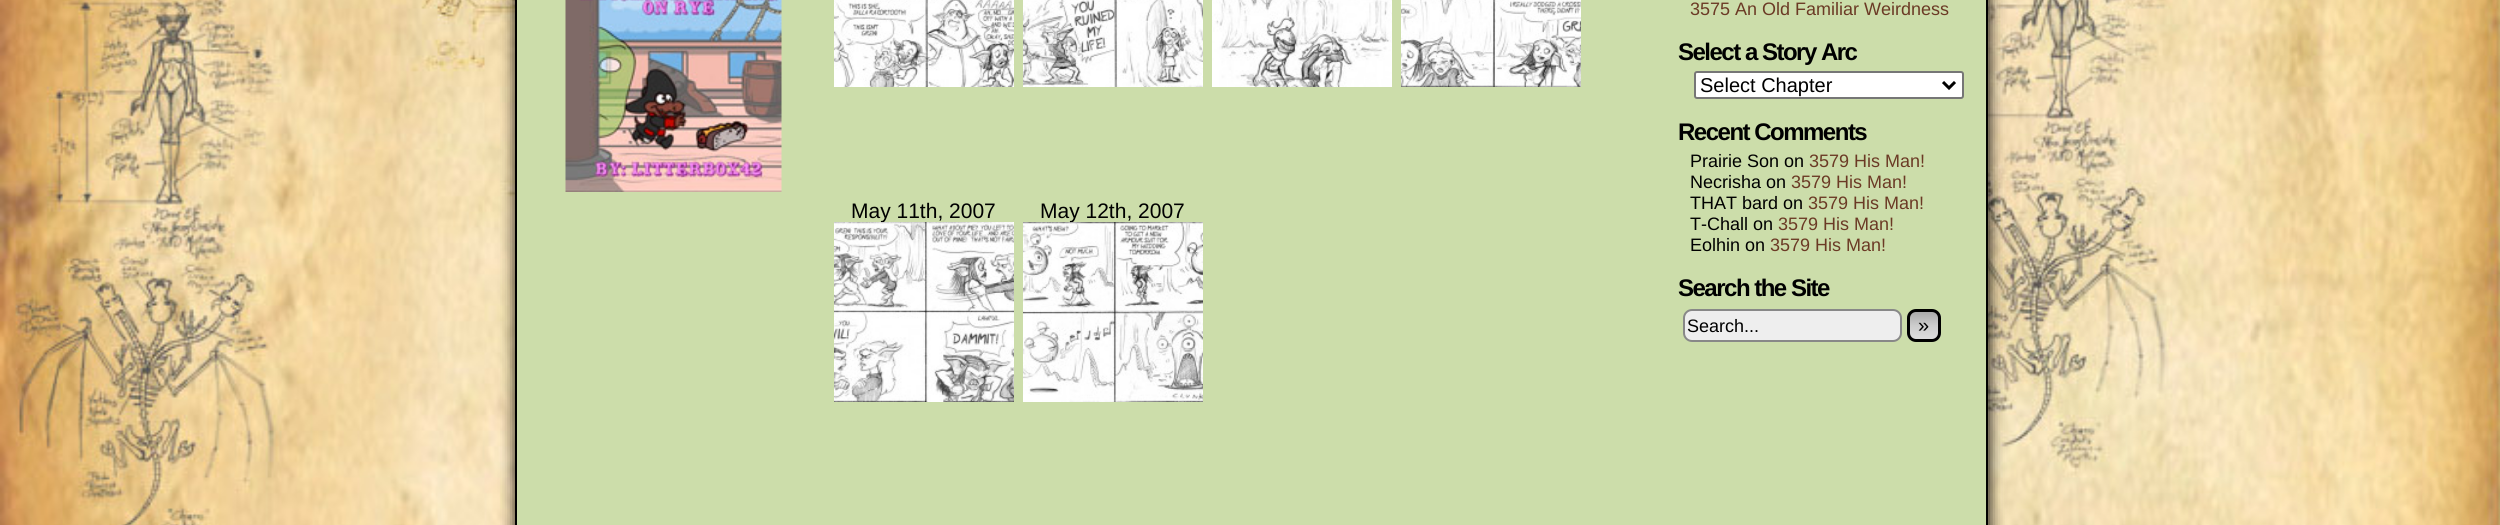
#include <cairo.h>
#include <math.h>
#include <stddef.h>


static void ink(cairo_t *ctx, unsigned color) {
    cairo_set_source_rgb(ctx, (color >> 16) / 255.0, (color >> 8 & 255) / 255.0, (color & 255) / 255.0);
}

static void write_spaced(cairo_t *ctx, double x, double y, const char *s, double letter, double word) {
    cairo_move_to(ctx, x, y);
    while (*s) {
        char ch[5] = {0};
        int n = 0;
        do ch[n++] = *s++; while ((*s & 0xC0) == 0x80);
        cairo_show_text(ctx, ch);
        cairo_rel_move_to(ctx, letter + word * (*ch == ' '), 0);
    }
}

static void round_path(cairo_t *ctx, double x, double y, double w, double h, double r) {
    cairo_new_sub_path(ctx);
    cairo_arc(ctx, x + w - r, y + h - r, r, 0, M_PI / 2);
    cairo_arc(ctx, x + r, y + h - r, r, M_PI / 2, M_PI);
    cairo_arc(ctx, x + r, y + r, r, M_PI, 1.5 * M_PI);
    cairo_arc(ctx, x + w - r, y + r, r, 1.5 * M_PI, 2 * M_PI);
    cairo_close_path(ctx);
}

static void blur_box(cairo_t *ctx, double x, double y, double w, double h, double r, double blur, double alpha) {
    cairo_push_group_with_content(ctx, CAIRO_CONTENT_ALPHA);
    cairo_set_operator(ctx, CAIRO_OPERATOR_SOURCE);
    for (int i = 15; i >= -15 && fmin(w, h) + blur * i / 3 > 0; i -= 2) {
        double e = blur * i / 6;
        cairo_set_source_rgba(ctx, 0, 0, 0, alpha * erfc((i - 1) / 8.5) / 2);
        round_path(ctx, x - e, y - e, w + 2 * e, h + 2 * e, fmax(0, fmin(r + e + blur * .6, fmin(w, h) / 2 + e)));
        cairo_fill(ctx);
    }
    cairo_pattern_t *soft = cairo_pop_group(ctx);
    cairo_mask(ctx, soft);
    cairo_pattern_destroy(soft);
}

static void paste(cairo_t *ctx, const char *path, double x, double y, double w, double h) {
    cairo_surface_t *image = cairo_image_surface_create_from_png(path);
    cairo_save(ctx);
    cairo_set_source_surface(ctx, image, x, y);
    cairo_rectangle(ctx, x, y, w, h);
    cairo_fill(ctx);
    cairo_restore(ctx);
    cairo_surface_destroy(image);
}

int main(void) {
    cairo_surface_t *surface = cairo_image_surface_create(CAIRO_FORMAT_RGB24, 2500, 525);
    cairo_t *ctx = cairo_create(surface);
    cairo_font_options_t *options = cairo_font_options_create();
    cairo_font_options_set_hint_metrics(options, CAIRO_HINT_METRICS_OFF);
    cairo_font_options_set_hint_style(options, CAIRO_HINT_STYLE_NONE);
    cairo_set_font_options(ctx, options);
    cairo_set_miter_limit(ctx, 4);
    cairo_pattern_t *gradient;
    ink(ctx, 0xFFFFFF);
    cairo_paint(ctx);
    paste(ctx, "media/1.png", 0, 0, 2500, 525);
    ink(ctx, 0x000000);
    blur_box(ctx, 516, -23, 1473, 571, 0, 7.5, 1);
    ink(ctx, 0xCCDDAA);
    cairo_rectangle(ctx, 516, -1, 1471, 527);
    cairo_fill_preserve(ctx);
    ink(ctx, 0x000000);
    cairo_stroke(ctx);
    paste(ctx, "media/2.png", 565, 0, 217, 192);
    paste(ctx, "media/3.png", 834, 0, 180, 87);
    paste(ctx, "media/4.png", 1023, 0, 180, 87);
    paste(ctx, "media/5.png", 1212, 0, 180, 87);
    paste(ctx, "media/6.png", 1401, 0, 180, 87);
    cairo_select_font_face(ctx, "Liberation Sans", CAIRO_FONT_SLANT_NORMAL, CAIRO_FONT_WEIGHT_NORMAL);
    cairo_set_font_size(ctx, 21);
    cairo_move_to(ctx, 851, 218);
    cairo_show_text(ctx, "May 11th, 2007");
    paste(ctx, "media/7.png", 834, 222, 180, 180);
    cairo_move_to(ctx, 1040, 218);
    cairo_show_text(ctx, "May 12th, 2007");
    paste(ctx, "media/8.png", 1023, 222, 180, 180);
    cairo_set_font_size(ctx, 18);
    ink(ctx, 0x6B3A25);
    cairo_move_to(ctx, 1690, 15);
    cairo_show_text(ctx, "3575 An Old Familiar Weirdness");
    cairo_select_font_face(ctx, "Liberation Sans", CAIRO_FONT_SLANT_NORMAL, CAIRO_FONT_WEIGHT_BOLD);
    cairo_set_font_size(ctx, 24);
    ink(ctx, 0x000000);
    write_spaced(ctx, 1678, 60, "Select a Story Arc", -1.5, 0);
    ink(ctx, 0xFFFFFF);
    round_path(ctx, 1695, 72, 268, 26, 2);
    cairo_fill_preserve(ctx);
    ink(ctx, 0x767676);
    cairo_stroke(ctx);
    cairo_new_path(ctx);
    cairo_move_to(ctx, 1943, 82);
    cairo_line_to(ctx, 1949, 88);
    cairo_line_to(ctx, 1955, 82);
    ink(ctx, 0x000000);
    cairo_set_line_width(ctx, 3);
    cairo_stroke(ctx);
    cairo_select_font_face(ctx, "Liberation Sans", CAIRO_FONT_SLANT_NORMAL, CAIRO_FONT_WEIGHT_NORMAL);
    cairo_set_font_size(ctx, 20);
    cairo_move_to(ctx, 1700, 92);
    cairo_show_text(ctx, "Select Chapter");
    cairo_select_font_face(ctx, "Liberation Sans", CAIRO_FONT_SLANT_NORMAL, CAIRO_FONT_WEIGHT_BOLD);
    cairo_set_font_size(ctx, 24);
    write_spaced(ctx, 1678, 140, "Recent Comments", -1.5, 0);
    cairo_select_font_face(ctx, "Liberation Sans", CAIRO_FONT_SLANT_NORMAL, CAIRO_FONT_WEIGHT_NORMAL);
    cairo_set_font_size(ctx, 18);
    cairo_move_to(ctx, 1690, 167);
    cairo_show_text(ctx, "Prairie Son on");
    ink(ctx, 0x6B3A25);
    cairo_move_to(ctx, 1809, 167);
    cairo_show_text(ctx, "3579 His Man!");
    ink(ctx, 0x000000);
    cairo_move_to(ctx, 1690, 188);
    cairo_show_text(ctx, "Necrisha on");
    ink(ctx, 0x6B3A25);
    cairo_move_to(ctx, 1791, 188);
    cairo_show_text(ctx, "3579 His Man!");
    ink(ctx, 0x000000);
    cairo_move_to(ctx, 1690, 209);
    cairo_show_text(ctx, "THAT bard on");
    ink(ctx, 0x6B3A25);
    cairo_move_to(ctx, 1808, 209);
    cairo_show_text(ctx, "3579 His Man!");
    ink(ctx, 0x000000);
    cairo_move_to(ctx, 1690, 230);
    cairo_show_text(ctx, "T-Chall on");
    ink(ctx, 0x6B3A25);
    cairo_move_to(ctx, 1778, 230);
    cairo_show_text(ctx, "3579 His Man!");
    ink(ctx, 0x000000);
    cairo_move_to(ctx, 1690, 251);
    cairo_show_text(ctx, "Eolhin on");
    ink(ctx, 0x6B3A25);
    cairo_move_to(ctx, 1770, 251);
    cairo_show_text(ctx, "3579 His Man!");
    cairo_select_font_face(ctx, "Liberation Sans", CAIRO_FONT_SLANT_NORMAL, CAIRO_FONT_WEIGHT_BOLD);
    cairo_set_font_size(ctx, 24);
    ink(ctx, 0x000000);
    write_spaced(ctx, 1678, 296, "Search the Site", -1.5, 0);
    ink(ctx, 0xEEEEEE);
    round_path(ctx, 1684, 310, 217, 31, 8);
    cairo_fill_preserve(ctx);
    ink(ctx, 0x888888);
    cairo_set_line_width(ctx, 2);
    cairo_stroke(ctx);
    cairo_select_font_face(ctx, "Liberation Sans", CAIRO_FONT_SLANT_NORMAL, CAIRO_FONT_WEIGHT_NORMAL);
    cairo_set_font_size(ctx, 18);
    ink(ctx, 0x000000);
    cairo_move_to(ctx, 1687, 332);
    cairo_show_text(ctx, "Search...");
    cairo_save(ctx);
    round_path(ctx, 1907, 309, 34, 33, 9);
    cairo_clip(ctx);
    gradient = cairo_pattern_create_linear(1924, 312, 1924, 339);
    cairo_pattern_add_color_stop_rgba(gradient, 0, 0.667, 0.667, 0.667, 1);
    cairo_pattern_add_color_stop_rgba(gradient, 0.5, 0.8, 0.8, 0.8, 1);
    cairo_pattern_add_color_stop_rgba(gradient, 1, 0.867, 0.867, 0.867, 1);
    cairo_set_source(ctx, gradient);
    cairo_pattern_destroy(gradient);
    cairo_rectangle(ctx, 1907, 312, 34, 27);
    cairo_fill(ctx);
    cairo_restore(ctx);
    round_path(ctx, 1908.5, 310.5, 31, 30, 7.5);
    cairo_set_line_width(ctx, 3);
    cairo_stroke(ctx);
    cairo_set_font_size(ctx, 20);
    cairo_move_to(ctx, 1918, 332);
    cairo_show_text(ctx, "»");
    cairo_surface_write_to_png(surface, "image.png");
    cairo_font_options_destroy(options);
    cairo_destroy(ctx);
    cairo_surface_destroy(surface);
    return 0;
}
